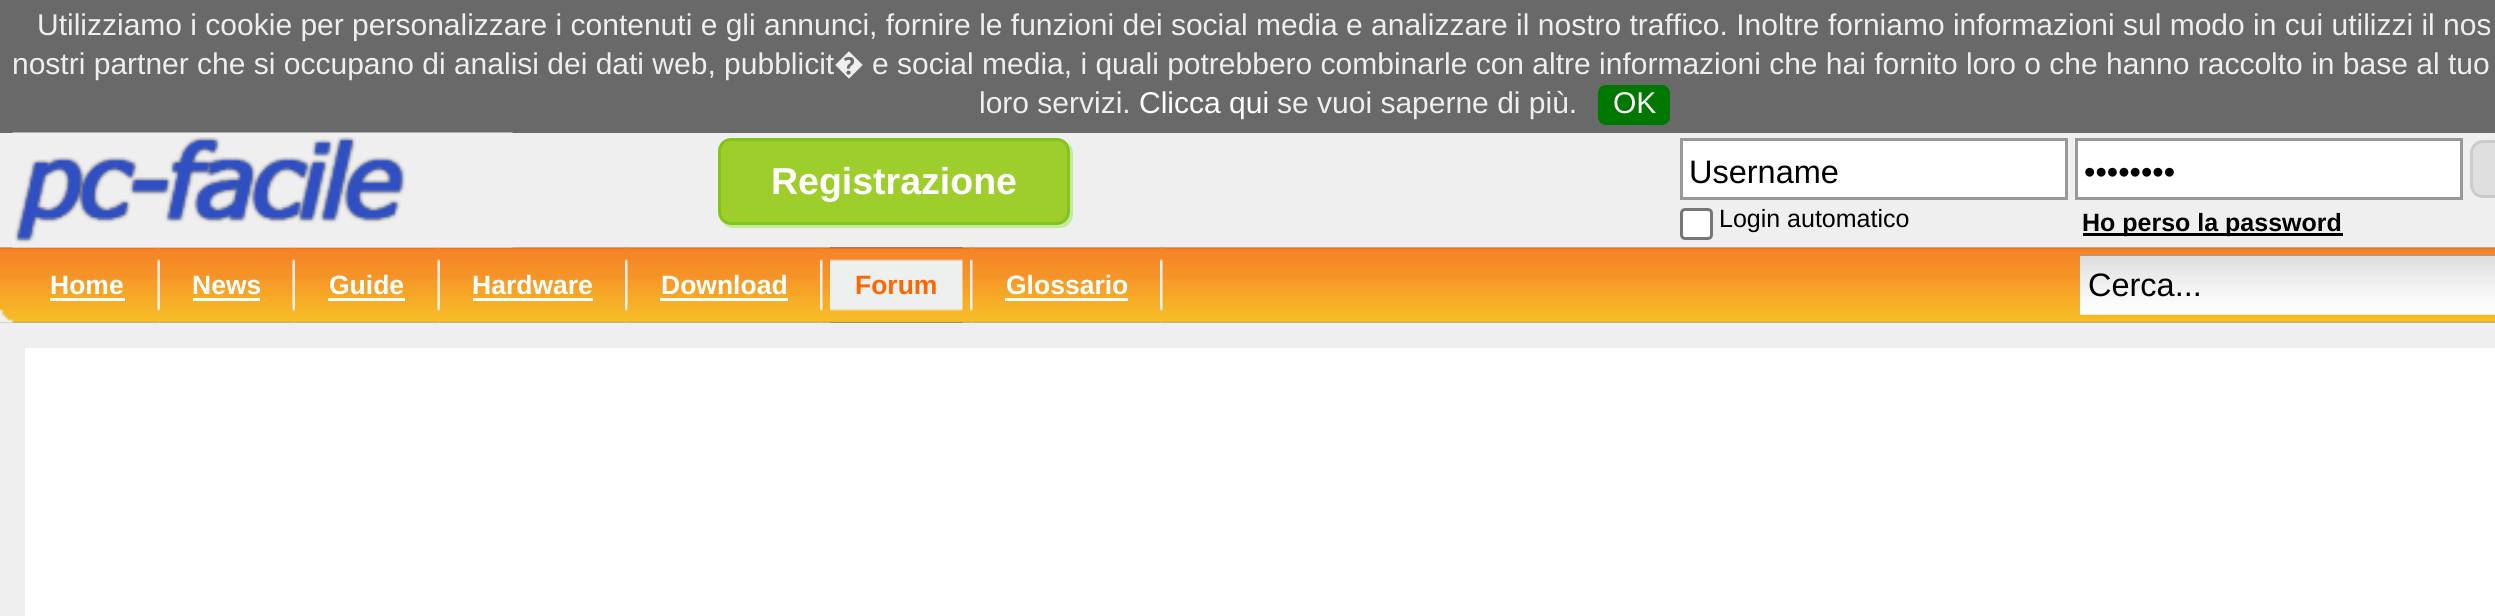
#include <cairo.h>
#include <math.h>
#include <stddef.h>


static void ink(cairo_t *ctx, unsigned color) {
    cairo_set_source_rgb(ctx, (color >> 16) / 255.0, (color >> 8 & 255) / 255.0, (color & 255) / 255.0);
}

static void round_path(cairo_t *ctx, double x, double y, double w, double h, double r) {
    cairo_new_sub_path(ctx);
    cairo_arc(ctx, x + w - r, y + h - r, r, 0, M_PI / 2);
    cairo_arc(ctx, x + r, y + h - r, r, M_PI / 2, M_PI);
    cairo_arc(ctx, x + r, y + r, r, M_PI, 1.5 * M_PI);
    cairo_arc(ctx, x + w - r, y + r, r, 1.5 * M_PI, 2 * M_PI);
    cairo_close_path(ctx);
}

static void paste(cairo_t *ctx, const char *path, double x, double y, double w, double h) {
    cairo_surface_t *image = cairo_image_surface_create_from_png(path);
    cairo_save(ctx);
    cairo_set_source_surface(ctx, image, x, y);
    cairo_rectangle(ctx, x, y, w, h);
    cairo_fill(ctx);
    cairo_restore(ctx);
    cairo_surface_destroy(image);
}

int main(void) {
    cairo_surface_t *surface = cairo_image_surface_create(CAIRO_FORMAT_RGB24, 2495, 616);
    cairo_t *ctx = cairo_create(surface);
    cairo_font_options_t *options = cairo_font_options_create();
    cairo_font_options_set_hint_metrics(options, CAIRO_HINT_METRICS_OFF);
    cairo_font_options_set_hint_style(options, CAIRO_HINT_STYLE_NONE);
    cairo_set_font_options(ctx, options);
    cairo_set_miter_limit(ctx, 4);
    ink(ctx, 0x696969);
    cairo_paint(ctx);
    cairo_select_font_face(ctx, "Liberation Sans", CAIRO_FONT_SLANT_NORMAL, CAIRO_FONT_WEIGHT_NORMAL);
    cairo_set_font_size(ctx, 30);
    ink(ctx, 0xEEEEEE);
    cairo_move_to(ctx, 37, 35);
    cairo_show_text(ctx, "Utilizziamo i cookie per personalizzare i contenuti e gli annunci, fornire le funzioni dei social media e analizzare il nostro traffico. Inoltre forniamo informazioni sul modo in cui utilizzi il nos");
    cairo_move_to(ctx, 12, 74);
    cairo_show_text(ctx, "nostri partner che si occupano di analisi dei dati web, pubblicit");
    cairo_select_font_face(ctx, "Noto Sans", CAIRO_FONT_SLANT_NORMAL, CAIRO_FONT_WEIGHT_NORMAL);
    cairo_move_to(ctx, 834, 74);
    cairo_show_text(ctx, "�");
    cairo_select_font_face(ctx, "Liberation Sans", CAIRO_FONT_SLANT_NORMAL, CAIRO_FONT_WEIGHT_NORMAL);
    cairo_move_to(ctx, 872, 74);
    cairo_show_text(ctx, "e social media, i quali potrebbero combinarle con altre informazioni che hai fornito loro o che hanno raccolto in base al tuo");
    cairo_move_to(ctx, 979, 113);
    cairo_show_text(ctx, "loro servizi.");
    ink(ctx, 0xFFFFFF);
    cairo_move_to(ctx, 1139, 113);
    cairo_show_text(ctx, "Clicca qui");
    ink(ctx, 0xEEEEEE);
    cairo_move_to(ctx, 1277, 113);
    cairo_show_text(ctx, "se vuoi saperne di più.");
    ink(ctx, 0x007700);
    round_path(ctx, 1598, 85, 72, 40, 8);
    cairo_fill(ctx);
    ink(ctx, 0xFFFFFF);
    cairo_move_to(ctx, 1613, 113);
    cairo_show_text(ctx, "OK");
    ink(ctx, 0xEFEFEF);
    cairo_rectangle(ctx, 0, 133, 2495, 115);
    cairo_fill(ctx);
    cairo_rectangle(ctx, 0, 322, 2495, 294);
    cairo_fill(ctx);
    paste(ctx, "media/2.png", 0, 247, 2495, 76);
    paste(ctx, "media/4.png", 157, 247, 3, 76);
    paste(ctx, "media/4.png", 292, 247, 3, 76);
    paste(ctx, "media/4.png", 437, 247, 3, 76);
    paste(ctx, "media/1.png", 12, 132, 501, 116);
    ink(ctx, 0xC1ED9C);
    cairo_new_path(ctx);
    cairo_move_to(ctx, 722, 222);
    cairo_curve_to(ctx, 725, 226, 729, 228, 733, 228);
    cairo_line_to(ctx, 1060, 228);
    cairo_curve_to(ctx, 1067, 228, 1073, 222, 1073, 215);
    cairo_line_to(ctx, 1073, 153);
    cairo_curve_to(ctx, 1073, 149, 1071, 145, 1067, 142);
    cairo_curve_to(ctx, 1069, 144, 1070, 147, 1070, 150);
    cairo_line_to(ctx, 1070, 212);
    cairo_curve_to(ctx, 1070, 219, 1064, 225, 1058, 225);
    cairo_line_to(ctx, 730, 225);
    cairo_curve_to(ctx, 727, 225, 724, 224, 722, 222);
    cairo_close_path(ctx);
    cairo_fill(ctx);
    ink(ctx, 0x9DCE2C);
    round_path(ctx, 719.5, 139.5, 349, 84, 11.5);
    cairo_fill_preserve(ctx);
    ink(ctx, 0x83C41A);
    cairo_set_line_width(ctx, 3);
    cairo_stroke(ctx);
    cairo_select_font_face(ctx, "Liberation Sans", CAIRO_FONT_SLANT_NORMAL, CAIRO_FONT_WEIGHT_BOLD);
    cairo_set_font_size(ctx, 37.5);
    ink(ctx, 0xFFFFFF);
    cairo_move_to(ctx, 771, 194);
    cairo_show_text(ctx, "Registrazione");
    cairo_rectangle(ctx, 1681.5, 139.5, 385, 59);
    cairo_fill_preserve(ctx);
    ink(ctx, 0x999999);
    cairo_stroke(ctx);
    cairo_select_font_face(ctx, "Liberation Sans", CAIRO_FONT_SLANT_NORMAL, CAIRO_FONT_WEIGHT_NORMAL);
    cairo_set_font_size(ctx, 32.5);
    ink(ctx, 0x000000);
    cairo_move_to(ctx, 1689, 183);
    cairo_show_text(ctx, "Username");
    ink(ctx, 0xFFFFFF);
    cairo_rectangle(ctx, 2076.5, 139.5, 385, 59);
    cairo_fill_preserve(ctx);
    ink(ctx, 0x999999);
    cairo_stroke(ctx);
    ink(ctx, 0x000000);
    cairo_move_to(ctx, 2084, 183);
    cairo_show_text(ctx, "••••••••");
    ink(ctx, 0xDFDFDF);
    round_path(ctx, 2471.5, 141.5, 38, 55, 11.5);
    cairo_fill_preserve(ctx);
    ink(ctx, 0xCBCBCB);
    cairo_stroke(ctx);
    ink(ctx, 0xFFFFFF);
    round_path(ctx, 1681.5, 209.5, 30, 29, 3.5);
    cairo_fill_preserve(ctx);
    ink(ctx, 0x767676);
    cairo_stroke(ctx);
    cairo_set_font_size(ctx, 25);
    ink(ctx, 0x000000);
    cairo_move_to(ctx, 1719, 227);
    cairo_show_text(ctx, "Login automatico");
    cairo_rectangle(ctx, 2083, 233, 260, 3);
    cairo_fill(ctx);
    cairo_select_font_face(ctx, "Liberation Sans", CAIRO_FONT_SLANT_NORMAL, CAIRO_FONT_WEIGHT_BOLD);
    cairo_move_to(ctx, 2082, 231);
    cairo_show_text(ctx, "Ho perso la password");
    paste(ctx, "media/3.png", 0, 309, 14, 14);
    cairo_set_font_size(ctx, 26.5);
    ink(ctx, 0xFFFFFF);
    cairo_move_to(ctx, 50, 294);
    cairo_show_text(ctx, "Home");
    cairo_rectangle(ctx, 50, 298, 75, 3);
    cairo_fill(ctx);
    cairo_move_to(ctx, 192, 294);
    cairo_show_text(ctx, "News");
    cairo_rectangle(ctx, 193, 298, 67, 3);
    cairo_fill(ctx);
    cairo_move_to(ctx, 329, 294);
    cairo_show_text(ctx, "Guide");
    cairo_rectangle(ctx, 328, 298, 77, 3);
    cairo_fill(ctx);
    paste(ctx, "media/5.png", 625, 247, 3, 76);
    cairo_move_to(ctx, 472, 294);
    cairo_show_text(ctx, "Hardware");
    cairo_rectangle(ctx, 473, 298, 120, 3);
    cairo_fill(ctx);
    paste(ctx, "media/5.png", 820, 247, 3, 76);
    cairo_move_to(ctx, 661, 294);
    cairo_show_text(ctx, "Download");
    cairo_rectangle(ctx, 660, 298, 128, 3);
    cairo_fill(ctx);
    paste(ctx, "media/5.png", 970, 247, 3, 76);
    paste(ctx, "media/6.png", 830, 247, 133, 76);
    ink(ctx, 0xFF6600);
    cairo_move_to(ctx, 855, 294);
    cairo_show_text(ctx, "Forum");
    paste(ctx, "media/5.png", 1160, 247, 3, 76);
    ink(ctx, 0xFFFFFF);
    cairo_move_to(ctx, 1006, 294);
    cairo_show_text(ctx, "Glossario");
    cairo_rectangle(ctx, 1005, 298, 123, 3);
    cairo_fill(ctx);
    paste(ctx, "media/7.png", 2080, 255, 415, 60);
    cairo_select_font_face(ctx, "Liberation Sans", CAIRO_FONT_SLANT_NORMAL, CAIRO_FONT_WEIGHT_NORMAL);
    cairo_set_font_size(ctx, 32.5);
    ink(ctx, 0x000000);
    cairo_move_to(ctx, 2088, 296);
    cairo_show_text(ctx, "Cerca...");
    ink(ctx, 0xFFFFFF);
    cairo_rectangle(ctx, 25, 348, 2470, 268);
    cairo_fill(ctx);
    cairo_surface_write_to_png(surface, "image.png");
    cairo_font_options_destroy(options);
    cairo_destroy(ctx);
    cairo_surface_destroy(surface);
    return 0;
}
